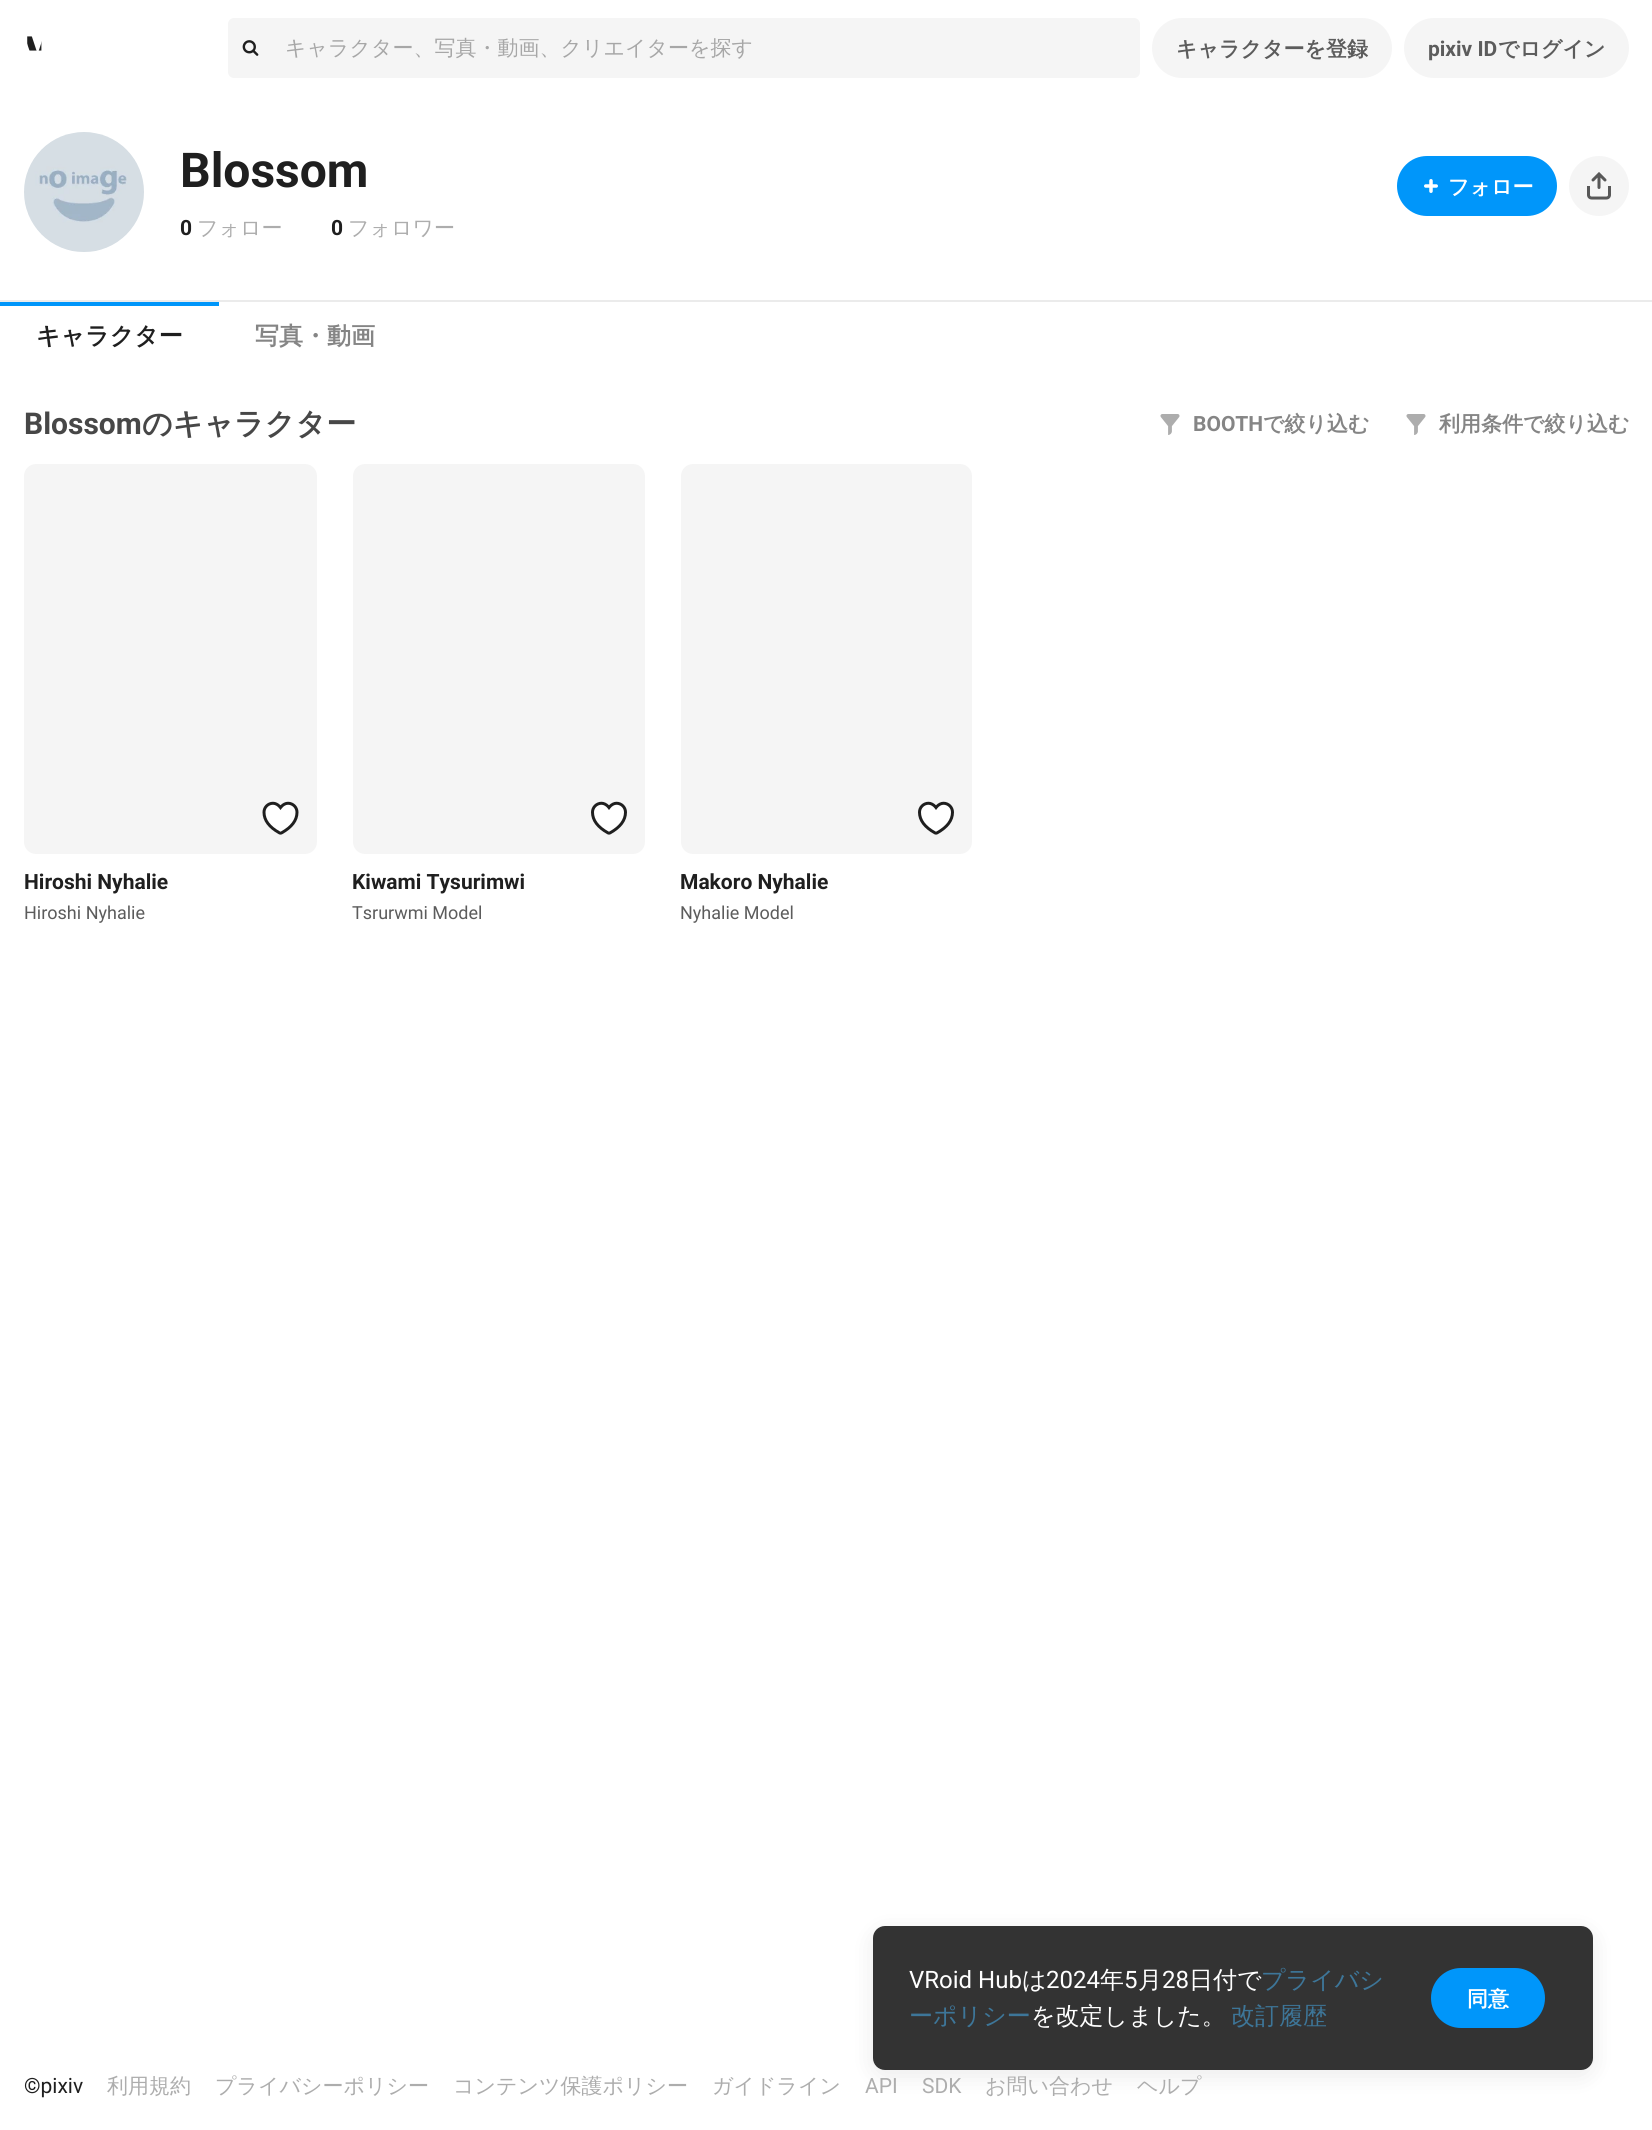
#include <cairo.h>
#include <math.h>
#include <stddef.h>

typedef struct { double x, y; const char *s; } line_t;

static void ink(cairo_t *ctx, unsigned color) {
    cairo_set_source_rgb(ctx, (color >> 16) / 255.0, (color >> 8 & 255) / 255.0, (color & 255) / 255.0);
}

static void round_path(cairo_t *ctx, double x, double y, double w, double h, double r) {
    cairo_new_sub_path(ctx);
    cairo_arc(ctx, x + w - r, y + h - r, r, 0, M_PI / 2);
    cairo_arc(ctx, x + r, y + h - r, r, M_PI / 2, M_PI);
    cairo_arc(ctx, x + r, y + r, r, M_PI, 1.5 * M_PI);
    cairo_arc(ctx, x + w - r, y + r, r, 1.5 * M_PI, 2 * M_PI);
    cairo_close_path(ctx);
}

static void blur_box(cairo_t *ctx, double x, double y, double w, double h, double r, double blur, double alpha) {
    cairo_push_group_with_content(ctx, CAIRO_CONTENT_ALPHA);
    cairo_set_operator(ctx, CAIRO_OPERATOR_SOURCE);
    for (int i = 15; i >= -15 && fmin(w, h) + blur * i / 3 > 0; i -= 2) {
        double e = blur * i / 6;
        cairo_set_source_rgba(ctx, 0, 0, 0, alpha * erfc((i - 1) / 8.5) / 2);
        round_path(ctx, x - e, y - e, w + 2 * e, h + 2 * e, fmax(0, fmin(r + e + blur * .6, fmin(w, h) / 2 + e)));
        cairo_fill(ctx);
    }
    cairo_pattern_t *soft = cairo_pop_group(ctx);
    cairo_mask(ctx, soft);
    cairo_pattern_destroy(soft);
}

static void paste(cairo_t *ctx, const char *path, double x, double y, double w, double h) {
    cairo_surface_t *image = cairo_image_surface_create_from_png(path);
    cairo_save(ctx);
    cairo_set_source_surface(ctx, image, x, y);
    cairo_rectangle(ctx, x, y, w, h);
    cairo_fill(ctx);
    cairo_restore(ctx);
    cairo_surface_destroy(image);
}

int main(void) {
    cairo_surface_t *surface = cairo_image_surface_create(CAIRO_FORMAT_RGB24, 1652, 2130);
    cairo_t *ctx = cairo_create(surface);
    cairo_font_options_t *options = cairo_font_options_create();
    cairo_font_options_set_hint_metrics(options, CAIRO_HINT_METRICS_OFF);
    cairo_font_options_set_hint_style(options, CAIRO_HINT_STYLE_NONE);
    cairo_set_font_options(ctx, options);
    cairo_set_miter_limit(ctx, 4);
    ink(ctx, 0xFFFFFF);
    cairo_paint(ctx);
    paste(ctx, "media/1.png", 27, 36, 15, 15);
    ink(ctx, 0xF5F5F5);
    round_path(ctx, 228, 18, 912, 60, 6);
    cairo_fill(ctx);
    paste(ctx, "media/2.png", 242, 40, 17, 16);
    cairo_select_font_face(ctx, "WenQuanYi Zen Hei Medium", CAIRO_FONT_SLANT_NORMAL, CAIRO_FONT_WEIGHT_NORMAL);
    cairo_set_font_size(ctx, 21);
    ink(ctx, 0xA7A7A7);
    cairo_move_to(ctx, 285, 55);
    cairo_show_text(ctx, "キャラクター、写真・動画、クリエイターを探す");
    ink(ctx, 0xF5F5F5);
    round_path(ctx, 1152, 18, 240, 60, 30);
    cairo_fill(ctx);
    cairo_select_font_face(ctx, "WenQuanYi Zen Hei", CAIRO_FONT_SLANT_NORMAL, CAIRO_FONT_WEIGHT_BOLD);
    ink(ctx, 0x5C5C5C);
    cairo_move_to(ctx, 1176, 56);
    cairo_show_text(ctx, "キャラクターを登録");
    ink(ctx, 0xF5F5F5);
    round_path(ctx, 1404, 18, 225, 60, 30);
    cairo_fill(ctx);
    cairo_select_font_face(ctx, "Roboto", CAIRO_FONT_SLANT_NORMAL, CAIRO_FONT_WEIGHT_BOLD);
    ink(ctx, 0x5C5C5C);
    cairo_move_to(ctx, 1428, 56);
    cairo_show_text(ctx, "pixiv ID");
    cairo_select_font_face(ctx, "WenQuanYi Zen Hei", CAIRO_FONT_SLANT_NORMAL, CAIRO_FONT_WEIGHT_BOLD);
    cairo_move_to(ctx, 1498, 56);
    cairo_show_text(ctx, "でログイン");
    paste(ctx, "media/3.png", 24, 132, 120, 120);
    cairo_select_font_face(ctx, "Roboto", CAIRO_FONT_SLANT_NORMAL, CAIRO_FONT_WEIGHT_BOLD);
    cairo_set_font_size(ctx, 48);
    ink(ctx, 0x1F1F1F);
    cairo_move_to(ctx, 180, 187);
    cairo_show_text(ctx, "Blossom");
    cairo_set_font_size(ctx, 21);
    cairo_move_to(ctx, 180, 235);
    cairo_show_text(ctx, "0");
    cairo_select_font_face(ctx, "WenQuanYi Zen Hei Medium", CAIRO_FONT_SLANT_NORMAL, CAIRO_FONT_WEIGHT_NORMAL);
    ink(ctx, 0xADADAD);
    cairo_move_to(ctx, 197, 235);
    cairo_show_text(ctx, "フォロー");
    cairo_select_font_face(ctx, "Roboto", CAIRO_FONT_SLANT_NORMAL, CAIRO_FONT_WEIGHT_BOLD);
    ink(ctx, 0x1F1F1F);
    cairo_move_to(ctx, 331, 235);
    cairo_show_text(ctx, "0");
    cairo_select_font_face(ctx, "WenQuanYi Zen Hei Medium", CAIRO_FONT_SLANT_NORMAL, CAIRO_FONT_WEIGHT_NORMAL);
    ink(ctx, 0xADADAD);
    cairo_move_to(ctx, 348, 235);
    cairo_show_text(ctx, "フォロワー");
    ink(ctx, 0x0096FA);
    round_path(ctx, 1397, 156, 160, 60, 30);
    cairo_fill(ctx);
    paste(ctx, "media/4.png", 1424, 179, 14, 14);
    cairo_select_font_face(ctx, "WenQuanYi Zen Hei", CAIRO_FONT_SLANT_NORMAL, CAIRO_FONT_WEIGHT_BOLD);
    ink(ctx, 0xFFFFFF);
    cairo_move_to(ctx, 1448, 194);
    cairo_show_text(ctx, "フォロー");
    ink(ctx, 0xF5F5F5);
    cairo_new_path(ctx);
    cairo_arc(ctx, 1599, 186, 30, 0, 2 * M_PI);
    cairo_fill(ctx);
    paste(ctx, "media/5.png", 1587, 172, 24, 28);
    ink(ctx, 0xEBEBEB);
    cairo_rectangle(ctx, 0, 300, 1652, 2);
    cairo_fill(ctx);
    ink(ctx, 0x0096FA);
    cairo_rectangle(ctx, 0, 302, 219, 4);
    cairo_fill(ctx);
    cairo_set_font_size(ctx, 24);
    ink(ctx, 0x1F1F1F);
    cairo_move_to(ctx, 36, 344);
    cairo_show_text(ctx, "キャラクター");
    ink(ctx, 0x858585);
    cairo_move_to(ctx, 255, 344);
    cairo_show_text(ctx, "写真・動画");
    cairo_select_font_face(ctx, "Roboto", CAIRO_FONT_SLANT_NORMAL, CAIRO_FONT_WEIGHT_BOLD);
    cairo_set_font_size(ctx, 30);
    ink(ctx, 0x474747);
    cairo_move_to(ctx, 24, 434);
    cairo_show_text(ctx, "Blossom");
    cairo_select_font_face(ctx, "WenQuanYi Zen Hei", CAIRO_FONT_SLANT_NORMAL, CAIRO_FONT_WEIGHT_BOLD);
    cairo_move_to(ctx, 142, 434);
    cairo_show_text(ctx, "のキャラクター");
    paste(ctx, "media/6.png", 1160, 414, 20, 21);
    cairo_select_font_face(ctx, "Roboto", CAIRO_FONT_SLANT_NORMAL, CAIRO_FONT_WEIGHT_BOLD);
    cairo_set_font_size(ctx, 21);
    ink(ctx, 0x858585);
    cairo_move_to(ctx, 1193, 431);
    cairo_show_text(ctx, "BOOTH");
    cairo_select_font_face(ctx, "WenQuanYi Zen Hei", CAIRO_FONT_SLANT_NORMAL, CAIRO_FONT_WEIGHT_BOLD);
    cairo_move_to(ctx, 1263, 431);
    cairo_show_text(ctx, "で絞り込む");
    paste(ctx, "media/6.png", 1406, 414, 20, 21);
    cairo_move_to(ctx, 1439, 431);
    cairo_show_text(ctx, "利用条件で絞り込む");
    ink(ctx, 0xF5F5F5);
    round_path(ctx, 24, 464, 293, 390, 12);
    cairo_fill(ctx);
    paste(ctx, "media/8.png", 262, 802, 37, 33);
    paste(ctx, "media/7.png", 262, 801, 37, 34);
    cairo_select_font_face(ctx, "Roboto", CAIRO_FONT_SLANT_NORMAL, CAIRO_FONT_WEIGHT_BOLD);
    ink(ctx, 0x1F1F1F);
    cairo_move_to(ctx, 24, 889);
    cairo_show_text(ctx, "Hiroshi Nyhalie");
    cairo_select_font_face(ctx, "Roboto", CAIRO_FONT_SLANT_NORMAL, CAIRO_FONT_WEIGHT_NORMAL);
    cairo_set_font_size(ctx, 18);
    ink(ctx, 0x5C5C5C);
    cairo_move_to(ctx, 24, 919);
    cairo_show_text(ctx, "Hiroshi Nyhalie");
    ink(ctx, 0xF5F5F5);
    round_path(ctx, 353, 464, 292, 390, 12);
    cairo_fill(ctx);
    paste(ctx, "media/10.png", 591, 802, 36, 33);
    paste(ctx, "media/9.png", 591, 801, 36, 34);
    cairo_select_font_face(ctx, "Roboto", CAIRO_FONT_SLANT_NORMAL, CAIRO_FONT_WEIGHT_BOLD);
    cairo_set_font_size(ctx, 21);
    ink(ctx, 0x1F1F1F);
    cairo_move_to(ctx, 352, 889);
    cairo_show_text(ctx, "Kiwami Tysurimwi");
    cairo_select_font_face(ctx, "Roboto", CAIRO_FONT_SLANT_NORMAL, CAIRO_FONT_WEIGHT_NORMAL);
    cairo_set_font_size(ctx, 18);
    ink(ctx, 0x5C5C5C);
    cairo_move_to(ctx, 352, 919);
    cairo_show_text(ctx, "Tsrurwmi Model");
    ink(ctx, 0xF5F5F5);
    round_path(ctx, 681, 464, 291, 390, 12);
    cairo_fill(ctx);
    paste(ctx, "media/10.png", 918, 802, 36, 33);
    paste(ctx, "media/9.png", 918, 801, 36, 34);
    cairo_select_font_face(ctx, "Roboto", CAIRO_FONT_SLANT_NORMAL, CAIRO_FONT_WEIGHT_BOLD);
    cairo_set_font_size(ctx, 21);
    ink(ctx, 0x1F1F1F);
    cairo_move_to(ctx, 680, 889);
    cairo_show_text(ctx, "Makoro Nyhalie");
    cairo_select_font_face(ctx, "Roboto", CAIRO_FONT_SLANT_NORMAL, CAIRO_FONT_WEIGHT_NORMAL);
    cairo_set_font_size(ctx, 18);
    ink(ctx, 0x5C5C5C);
    cairo_move_to(ctx, 680, 919);
    cairo_show_text(ctx, "Nyhalie Model");
    ink(ctx, 0x000000);
    blur_box(ctx, 873, 1932, 720, 144, 12, 12, 0.08);
    ink(ctx, 0x333333);
    round_path(ctx, 873, 1926, 720, 144, 12);
    cairo_fill(ctx);
    cairo_set_font_size(ctx, 24);
    ink(ctx, 0xFFFFFF);
    cairo_move_to(ctx, 909, 1988);
    cairo_show_text(ctx, "VRoid Hub");
    cairo_select_font_face(ctx, "WenQuanYi Zen Hei Medium", CAIRO_FONT_SLANT_NORMAL, CAIRO_FONT_WEIGHT_NORMAL);
    cairo_move_to(ctx, 1022, 1988);
    cairo_show_text(ctx, "は");
    cairo_select_font_face(ctx, "Roboto", CAIRO_FONT_SLANT_NORMAL, CAIRO_FONT_WEIGHT_NORMAL);
    cairo_move_to(ctx, 1046, 1988);
    cairo_show_text(ctx, "2024");
    cairo_select_font_face(ctx, "WenQuanYi Zen Hei Medium", CAIRO_FONT_SLANT_NORMAL, CAIRO_FONT_WEIGHT_NORMAL);
    cairo_move_to(ctx, 1100, 1988);
    cairo_show_text(ctx, "年");
    cairo_select_font_face(ctx, "Roboto", CAIRO_FONT_SLANT_NORMAL, CAIRO_FONT_WEIGHT_NORMAL);
    cairo_move_to(ctx, 1124, 1988);
    cairo_show_text(ctx, "5");
    cairo_select_font_face(ctx, "WenQuanYi Zen Hei Medium", CAIRO_FONT_SLANT_NORMAL, CAIRO_FONT_WEIGHT_NORMAL);
    cairo_move_to(ctx, 1138, 1988);
    cairo_show_text(ctx, "月");
    cairo_select_font_face(ctx, "Roboto", CAIRO_FONT_SLANT_NORMAL, CAIRO_FONT_WEIGHT_NORMAL);
    cairo_move_to(ctx, 1162, 1988);
    cairo_show_text(ctx, "28");
    cairo_select_font_face(ctx, "WenQuanYi Zen Hei Medium", CAIRO_FONT_SLANT_NORMAL, CAIRO_FONT_WEIGHT_NORMAL);
    cairo_move_to(ctx, 1189, 1988);
    cairo_show_text(ctx, "日付で");
    ink(ctx, 0x3D7699);
    cairo_move_to(ctx, 1261, 1988);
    cairo_show_text(ctx, "プライバシ");
    cairo_move_to(ctx, 909, 2024);
    cairo_show_text(ctx, "ーポリシー");
    ink(ctx, 0xFFFFFF);
    cairo_move_to(ctx, 1031, 2024);
    cairo_show_text(ctx, "を改定しました。");
    ink(ctx, 0x3D7699);
    cairo_move_to(ctx, 1231, 2024);
    cairo_show_text(ctx, "改訂履歴");
    ink(ctx, 0x0096FA);
    round_path(ctx, 1431, 1968, 114, 60, 30);
    cairo_fill(ctx);
    cairo_select_font_face(ctx, "WenQuanYi Zen Hei", CAIRO_FONT_SLANT_NORMAL, CAIRO_FONT_WEIGHT_BOLD);
    cairo_set_font_size(ctx, 21);
    ink(ctx, 0xFFFFFF);
    cairo_move_to(ctx, 1467, 2006);
    cairo_show_text(ctx, "同意");
    cairo_select_font_face(ctx, "Roboto", CAIRO_FONT_SLANT_NORMAL, CAIRO_FONT_WEIGHT_NORMAL);
    ink(ctx, 0x1F1F1F);
    cairo_move_to(ctx, 24, 2093);
    cairo_show_text(ctx, "©pixiv");
    cairo_select_font_face(ctx, "WenQuanYi Zen Hei Medium", CAIRO_FONT_SLANT_NORMAL, CAIRO_FONT_WEIGHT_NORMAL);
    ink(ctx, 0xADADAD);
    {
        static const line_t items[] = {
            {107, 2093, "利用規約"},
            {215, 2093, "プライバシーポリシー"},
            {453, 2093, "コンテンツ保護ポリシー"},
            {712, 2093, "ガイドライン"},
        };
        for (size_t i = 0; i < sizeof items / sizeof *items; i++) {
            cairo_move_to(ctx, items[i].x, items[i].y);
            cairo_show_text(ctx, items[i].s);
        }
    }
    cairo_select_font_face(ctx, "Roboto", CAIRO_FONT_SLANT_NORMAL, CAIRO_FONT_WEIGHT_NORMAL);
    cairo_move_to(ctx, 865, 2093);
    cairo_show_text(ctx, "API");
    cairo_move_to(ctx, 922, 2093);
    cairo_show_text(ctx, "SDK");
    cairo_select_font_face(ctx, "WenQuanYi Zen Hei Medium", CAIRO_FONT_SLANT_NORMAL, CAIRO_FONT_WEIGHT_NORMAL);
    cairo_move_to(ctx, 985, 2093);
    cairo_show_text(ctx, "お問い合わせ");
    cairo_move_to(ctx, 1137, 2093);
    cairo_show_text(ctx, "ヘルプ");
    cairo_surface_write_to_png(surface, "image.png");
    cairo_font_options_destroy(options);
    cairo_destroy(ctx);
    cairo_surface_destroy(surface);
    return 0;
}
